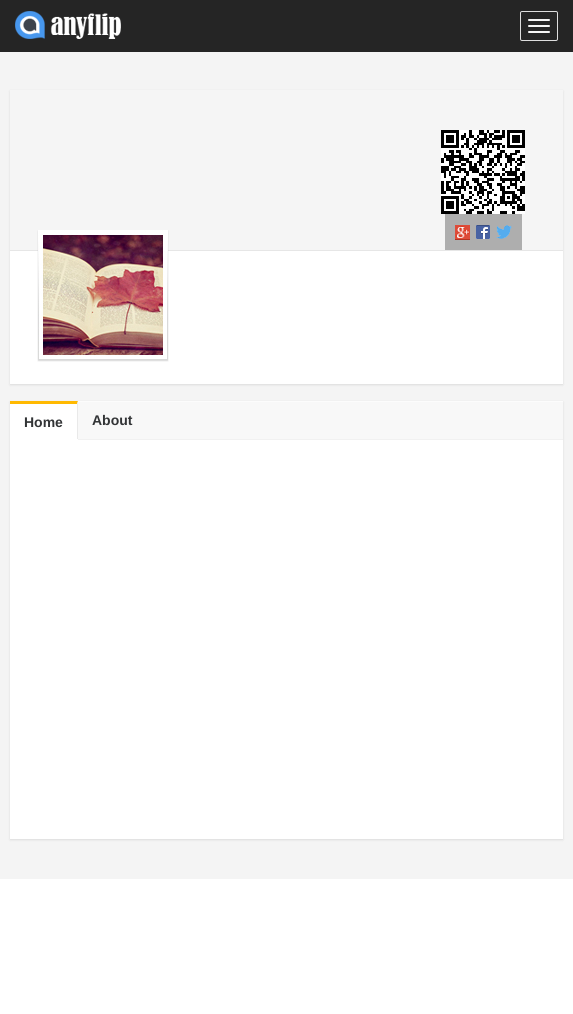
#include <cairo.h>
#include <math.h>
#include <stddef.h>

typedef struct { double x, y, w, h; unsigned color; } box_t;

static void ink(cairo_t *ctx, unsigned color) {
    cairo_set_source_rgb(ctx, (color >> 16) / 255.0, (color >> 8 & 255) / 255.0, (color & 255) / 255.0);
}

static void round_path(cairo_t *ctx, double x, double y, double w, double h, double r) {
    cairo_new_sub_path(ctx);
    cairo_arc(ctx, x + w - r, y + h - r, r, 0, M_PI / 2);
    cairo_arc(ctx, x + r, y + h - r, r, M_PI / 2, M_PI);
    cairo_arc(ctx, x + r, y + r, r, M_PI, 1.5 * M_PI);
    cairo_arc(ctx, x + w - r, y + r, r, 1.5 * M_PI, 2 * M_PI);
    cairo_close_path(ctx);
}

static void blur_box(cairo_t *ctx, double x, double y, double w, double h, double r, double blur, double alpha) {
    cairo_push_group_with_content(ctx, CAIRO_CONTENT_ALPHA);
    cairo_set_operator(ctx, CAIRO_OPERATOR_SOURCE);
    for (int i = 15; i >= -15 && fmin(w, h) + blur * i / 3 > 0; i -= 2) {
        double e = blur * i / 6;
        cairo_set_source_rgba(ctx, 0, 0, 0, alpha * erfc((i - 1) / 8.5) / 2);
        round_path(ctx, x - e, y - e, w + 2 * e, h + 2 * e, fmax(0, fmin(r + e + blur * .6, fmin(w, h) / 2 + e)));
        cairo_fill(ctx);
    }
    cairo_pattern_t *soft = cairo_pop_group(ctx);
    cairo_mask(ctx, soft);
    cairo_pattern_destroy(soft);
}

static void paste(cairo_t *ctx, const char *path, double x, double y, double w, double h) {
    cairo_surface_t *image = cairo_image_surface_create_from_png(path);
    cairo_save(ctx);
    cairo_set_source_surface(ctx, image, x, y);
    cairo_rectangle(ctx, x, y, w, h);
    cairo_fill(ctx);
    cairo_restore(ctx);
    cairo_surface_destroy(image);
}

int main(void) {
    cairo_surface_t *surface = cairo_image_surface_create(CAIRO_FORMAT_RGB24, 573, 1014);
    cairo_t *ctx = cairo_create(surface);
    cairo_font_options_t *options = cairo_font_options_create();
    cairo_font_options_set_hint_metrics(options, CAIRO_HINT_METRICS_OFF);
    cairo_font_options_set_hint_style(options, CAIRO_HINT_STYLE_NONE);
    cairo_set_font_options(ctx, options);
    cairo_set_miter_limit(ctx, 4);
    ink(ctx, 0xFFFFFF);
    cairo_paint(ctx);
    ink(ctx, 0x252525);
    cairo_rectangle(ctx, 0, 0, 573, 52);
    cairo_fill(ctx);
    paste(ctx, "media/1.png", 15, 11, 106, 28);
    round_path(ctx, 520.5, 11.5, 37, 29, 1.5);
    ink(ctx, 0xDEDEDE);
    cairo_set_line_width(ctx, 1);
    cairo_stroke(ctx);
    ink(ctx, 0xF5F5F5);
    round_path(ctx, 528, 19, 22, 2, 1);
    cairo_fill(ctx);
    round_path(ctx, 528, 25, 22, 2, 1);
    cairo_fill(ctx);
    round_path(ctx, 528, 31, 22, 2, 1);
    cairo_fill(ctx);
    ink(ctx, 0xF4F4F4);
    cairo_rectangle(ctx, 0, 52, 573, 827);
    cairo_fill(ctx);
    ink(ctx, 0x000000);
    blur_box(ctx, 10, 91, 553, 294, 0, 1, 0.1);
    {
        static const box_t items[] = {
            {10, 251, 553, 133, 0xFFFFFF},
            {10, 250, 553, 1, 0xE6E6E6},
            {10, 90, 553, 160, 0xF5F5F5},
        };
        for (size_t i = 0; i < sizeof items / sizeof *items; i++) {
            ink(ctx, items[i].color);
            cairo_rectangle(ctx, items[i].x, items[i].y, items[i].w, items[i].h);
            cairo_fill(ctx);
        }
    }
    paste(ctx, "media/2.png", 441, 130, 84, 84);
    ink(ctx, 0xAEAEAE);
    cairo_rectangle(ctx, 445, 214, 77, 36);
    cairo_fill(ctx);
    paste(ctx, "media/3.png", 455, 225, 15, 15);
    paste(ctx, "media/4.png", 476, 225, 14, 14);
    paste(ctx, "media/5.png", 496, 225, 16, 14);
    ink(ctx, 0x000000);
    blur_box(ctx, 38, 231, 130, 130, 0, 0.5, 0.15);
    paste(ctx, "media/6.png", 38, 230, 130, 130);
    blur_box(ctx, 10, 402, 553, 438, 0, 1, 0.1);
    {
        static const box_t items[] = {
            {10, 440, 553, 399, 0xFFFFFF},
            {78, 439, 485, 1, 0xF1F1F1},
            {78, 402, 485, 37, 0xF8F8F8},
            {78, 401, 485, 1, 0xFCFCFC},
            {10, 401, 68, 39, 0xFFFFFF},
        };
        for (size_t i = 0; i < sizeof items / sizeof *items; i++) {
            ink(ctx, items[i].color);
            cairo_rectangle(ctx, items[i].x, items[i].y, items[i].w, items[i].h);
            cairo_fill(ctx);
        }
    }
    ink(ctx, 0xFFB901);
    cairo_new_path(ctx);
    cairo_move_to(ctx, 10, 401);
    cairo_line_to(ctx, 78, 401);
    cairo_line_to(ctx, 77, 404);
    cairo_line_to(ctx, 10, 404);
    cairo_close_path(ctx);
    cairo_fill(ctx);
    ink(ctx, 0xE9E9E9);
    cairo_new_path(ctx);
    cairo_move_to(ctx, 78, 401);
    cairo_line_to(ctx, 78, 439);
    cairo_line_to(ctx, 77, 439);
    cairo_line_to(ctx, 77, 404);
    cairo_close_path(ctx);
    cairo_fill(ctx);
    cairo_select_font_face(ctx, "Liberation Sans", CAIRO_FONT_SLANT_NORMAL, CAIRO_FONT_WEIGHT_BOLD);
    cairo_set_font_size(ctx, 14);
    ink(ctx, 0x323436);
    cairo_move_to(ctx, 24, 427);
    cairo_show_text(ctx, "Home");
    cairo_move_to(ctx, 92, 425);
    cairo_show_text(ctx, "About");
    cairo_surface_write_to_png(surface, "image.png");
    cairo_font_options_destroy(options);
    cairo_destroy(ctx);
    cairo_surface_destroy(surface);
    return 0;
}
